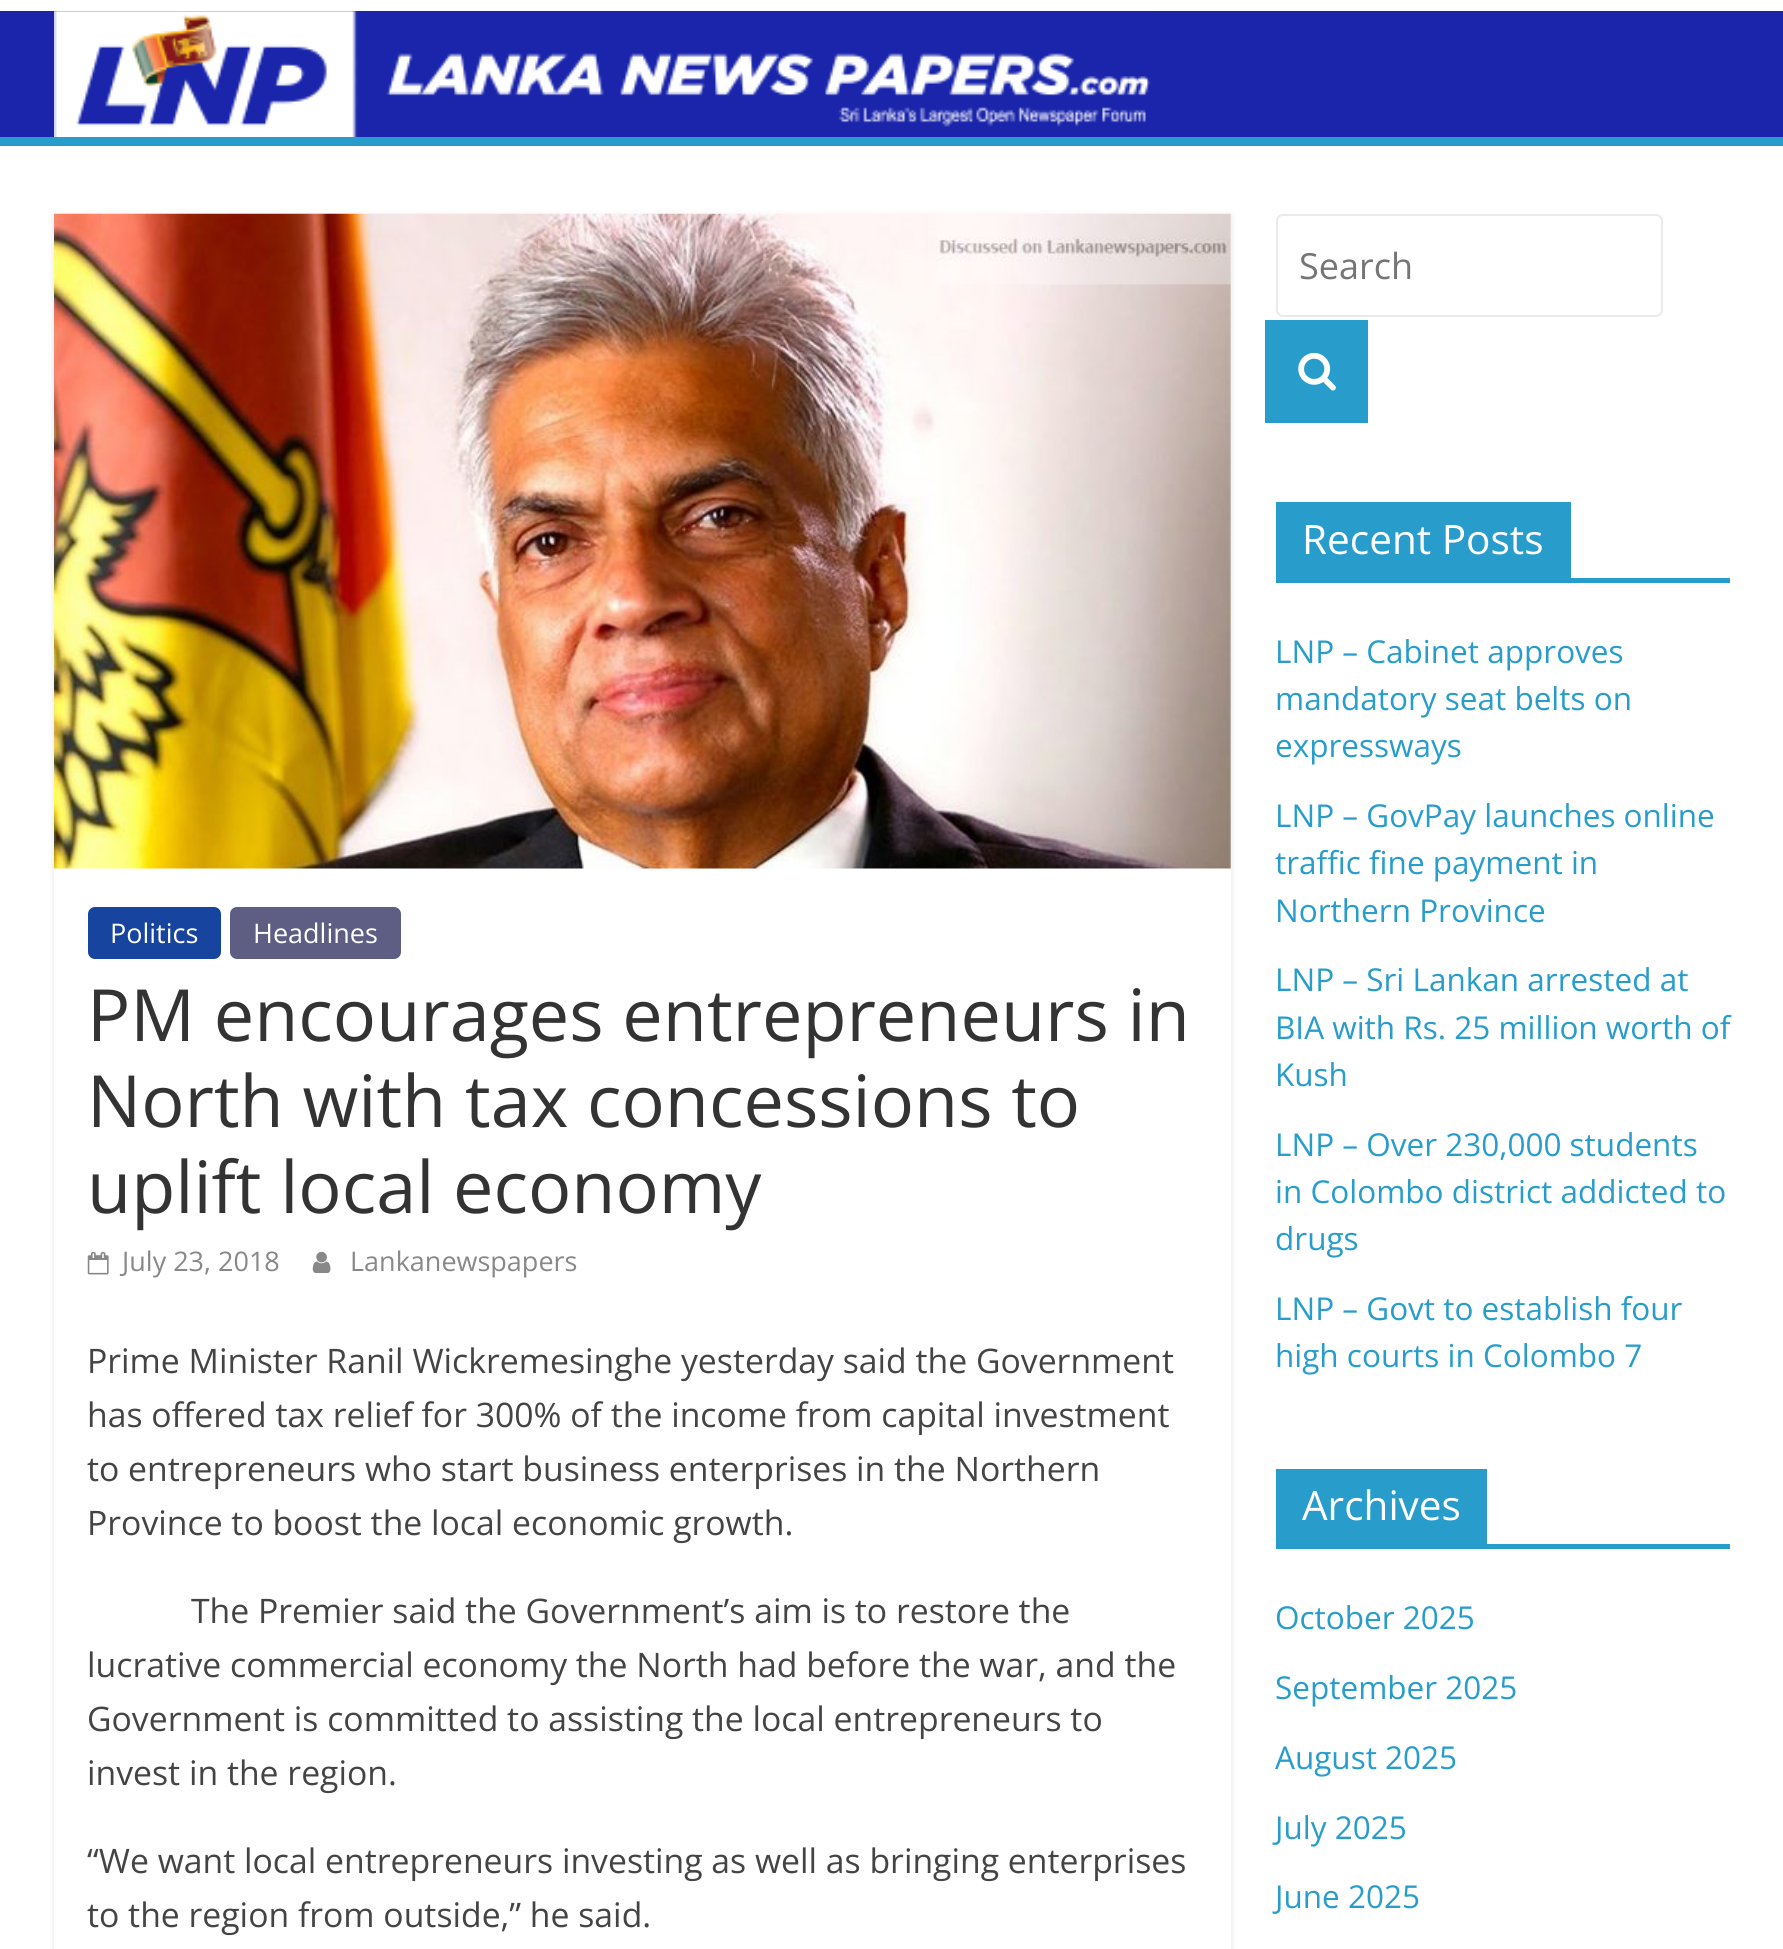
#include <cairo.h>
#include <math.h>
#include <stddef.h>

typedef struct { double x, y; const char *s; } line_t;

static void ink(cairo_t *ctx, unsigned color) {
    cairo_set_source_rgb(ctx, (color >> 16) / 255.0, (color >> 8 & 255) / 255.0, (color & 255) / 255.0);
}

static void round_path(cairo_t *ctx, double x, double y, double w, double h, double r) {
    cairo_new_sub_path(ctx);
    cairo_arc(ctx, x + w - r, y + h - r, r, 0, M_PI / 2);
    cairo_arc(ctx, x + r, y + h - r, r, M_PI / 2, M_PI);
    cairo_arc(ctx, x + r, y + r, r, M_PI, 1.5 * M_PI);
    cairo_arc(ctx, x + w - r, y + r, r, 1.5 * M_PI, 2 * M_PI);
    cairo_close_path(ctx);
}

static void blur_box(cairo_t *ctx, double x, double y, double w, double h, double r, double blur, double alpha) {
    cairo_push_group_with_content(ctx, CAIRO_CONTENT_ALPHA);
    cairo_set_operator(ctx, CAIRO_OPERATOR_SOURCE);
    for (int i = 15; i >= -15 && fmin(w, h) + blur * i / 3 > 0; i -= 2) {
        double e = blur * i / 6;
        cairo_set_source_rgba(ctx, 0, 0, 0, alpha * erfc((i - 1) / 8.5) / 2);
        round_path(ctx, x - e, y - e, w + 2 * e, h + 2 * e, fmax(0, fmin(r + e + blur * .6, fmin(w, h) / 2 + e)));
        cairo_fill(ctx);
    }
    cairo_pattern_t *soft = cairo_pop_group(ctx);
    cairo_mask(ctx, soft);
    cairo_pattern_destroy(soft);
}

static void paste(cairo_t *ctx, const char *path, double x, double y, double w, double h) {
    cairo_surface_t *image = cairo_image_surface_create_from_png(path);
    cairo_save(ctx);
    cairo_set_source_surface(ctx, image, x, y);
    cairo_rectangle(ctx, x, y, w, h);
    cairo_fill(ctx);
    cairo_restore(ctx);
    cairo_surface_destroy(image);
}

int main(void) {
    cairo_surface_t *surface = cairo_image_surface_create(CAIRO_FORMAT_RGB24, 1783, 1949);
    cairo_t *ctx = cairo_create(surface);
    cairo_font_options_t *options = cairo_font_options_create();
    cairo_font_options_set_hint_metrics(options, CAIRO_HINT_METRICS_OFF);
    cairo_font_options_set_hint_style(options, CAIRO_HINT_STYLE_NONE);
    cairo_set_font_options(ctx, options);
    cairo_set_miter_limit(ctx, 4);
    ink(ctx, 0x1A25AB);
    cairo_paint(ctx);
    ink(ctx, 0x000000);
    blur_box(ctx, 0, 0, 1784, 11, 0, 2, 0.1);
    ink(ctx, 0xFFFFFF);
    cairo_rectangle(ctx, 0, 0, 1783, 11);
    cairo_fill(ctx);
    paste(ctx, "media/1.png", 54, 11, 1097, 126);
    ink(ctx, 0x289DCC);
    cairo_rectangle(ctx, 0, 137, 1783, 9);
    cairo_fill(ctx);
    ink(ctx, 0xFFFFFF);
    cairo_rectangle(ctx, 0, 146, 1783, 1803);
    cairo_fill(ctx);
    cairo_save(ctx);
    cairo_set_fill_rule(ctx, CAIRO_FILL_RULE_EVEN_ODD);
    cairo_new_path(ctx);
    cairo_move_to(ctx, 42, 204);
    cairo_line_to(ctx, 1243, 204);
    cairo_line_to(ctx, 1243, 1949);
    cairo_line_to(ctx, 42, 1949);
    cairo_close_path(ctx);
    cairo_move_to(ctx, 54, 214);
    cairo_line_to(ctx, 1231, 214);
    cairo_line_to(ctx, 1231, 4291);
    cairo_line_to(ctx, 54, 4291);
    cairo_close_path(ctx);
    cairo_clip(ctx);
    ink(ctx, 0x000000);
    blur_box(ctx, 54, 216, 1177, 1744, 0, 3.5, 0.1);
    cairo_restore(ctx);
    paste(ctx, "media/2.png", 54, 213, 1177, 656);
    ink(ctx, 0x17449E);
    round_path(ctx, 88, 907, 133, 52, 7);
    cairo_fill(ctx);
    cairo_select_font_face(ctx, "Open Sans", CAIRO_FONT_SLANT_NORMAL, CAIRO_FONT_WEIGHT_NORMAL);
    cairo_set_font_size(ctx, 27);
    ink(ctx, 0xFFFFFF);
    cairo_move_to(ctx, 110, 943);
    cairo_show_text(ctx, "Politics");
    ink(ctx, 0x5E5E84);
    round_path(ctx, 230, 907, 171, 52, 7);
    cairo_fill(ctx);
    ink(ctx, 0xFFFFFF);
    cairo_move_to(ctx, 253, 943);
    cairo_show_text(ctx, "Headlines");
    cairo_set_font_size(ctx, 72);
    ink(ctx, 0x333333);
    {
        static const line_t items[] = {
            {87, 1041, "PM encourages entrepreneurs in"},
            {87, 1127, "North with tax concessions to"},
            {87, 1213, "uplift local economy"},
        };
        for (size_t i = 0; i < sizeof items / sizeof *items; i++) {
            cairo_move_to(ctx, items[i].x, items[i].y);
            cairo_show_text(ctx, items[i].s);
        }
    }
    paste(ctx, "media/3.png", 87, 1251, 22, 24);
    cairo_set_font_size(ctx, 27);
    ink(ctx, 0x888888);
    cairo_move_to(ctx, 122, 1271);
    cairo_show_text(ctx, "July 23, 2018");
    paste(ctx, "media/4.png", 312, 1251, 19, 22);
    cairo_move_to(ctx, 350, 1271);
    cairo_show_text(ctx, "Lankanewspapers");
    cairo_set_font_size(ctx, 33.75);
    ink(ctx, 0x444444);
    {
        static const line_t items[] = {
            {87, 1373, "Prime Minister Ranil Wickremesinghe yesterday said the Government"},
            {87, 1427, "has offered tax relief for 300% of the income from capital investment"},
            {87, 1481, "to entrepreneurs who start business enterprises in the Northern"},
            {87, 1535, "Province to boost the local economic growth."},
            {191, 1623, "The Premier said the Government’s aim is to restore the"},
            {87, 1677, "lucrative commercial economy the North had before the war, and the"},
            {87, 1731, "Government is committed to assisting the local entrepreneurs to"},
            {87, 1785, "invest in the region."},
            {87, 1873, "“We want local entrepreneurs investing as well as bringing enterprises"},
            {87, 1927, "to the region from outside,” he said."},
        };
        for (size_t i = 0; i < sizeof items / sizeof *items; i++) {
            cairo_move_to(ctx, items[i].x, items[i].y);
            cairo_show_text(ctx, items[i].s);
        }
    }
    round_path(ctx, 1277, 215, 385, 101, 6);
    ink(ctx, 0xEAEAEA);
    cairo_stroke(ctx);
    cairo_set_font_size(ctx, 36);
    ink(ctx, 0x757575);
    cairo_move_to(ctx, 1299, 279);
    cairo_show_text(ctx, "Search");
    ink(ctx, 0x289DCC);
    cairo_rectangle(ctx, 1265, 320, 103, 103);
    cairo_fill(ctx);
    paste(ctx, "media/5.png", 1298, 352, 38, 39);
    cairo_rectangle(ctx, 1276, 578, 454, 5);
    cairo_fill(ctx);
    cairo_rectangle(ctx, 1276, 502, 295, 76);
    cairo_fill(ctx);
    cairo_set_font_size(ctx, 40.5);
    ink(ctx, 0xFFFFFF);
    cairo_move_to(ctx, 1302, 554);
    cairo_show_text(ctx, "Recent Posts");
    cairo_set_font_size(ctx, 31.5);
    ink(ctx, 0x289DCC);
    {
        static const line_t items[] = {
            {1275, 663, "LNP – Cabinet approves"},
            {1275, 710, "mandatory seat belts on"},
            {1275, 757, "expressways"},
            {1275, 827, "LNP – GovPay launches online"},
            {1275, 874, "traffic fine payment in"},
            {1275, 922, "Northern Province"},
            {1275, 991, "LNP – Sri Lankan arrested at"},
            {1275, 1039, "BIA with Rs. 25 million worth of"},
            {1275, 1086, "Kush"},
            {1275, 1156, "LNP – Over 230,000 students"},
            {1275, 1203, "in Colombo district addicted to"},
            {1275, 1250, "drugs"},
            {1275, 1320, "LNP – Govt to establish four"},
            {1275, 1367, "high courts in Colombo 7"},
        };
        for (size_t i = 0; i < sizeof items / sizeof *items; i++) {
            cairo_move_to(ctx, items[i].x, items[i].y);
            cairo_show_text(ctx, items[i].s);
        }
    }
    cairo_rectangle(ctx, 1276, 1544, 454, 5);
    cairo_fill(ctx);
    cairo_rectangle(ctx, 1276, 1469, 211, 75);
    cairo_fill(ctx);
    cairo_set_font_size(ctx, 40.5);
    ink(ctx, 0xFFFFFF);
    cairo_move_to(ctx, 1302, 1520);
    cairo_show_text(ctx, "Archives");
    cairo_set_font_size(ctx, 31.5);
    ink(ctx, 0x289DCC);
    {
        static const line_t items[] = {
            {1275, 1629, "October 2025"},
            {1275, 1699, "September 2025"},
            {1275, 1769, "August 2025"},
            {1275, 1839, "July 2025"},
            {1275, 1908, "June 2025"},
        };
        for (size_t i = 0; i < sizeof items / sizeof *items; i++) {
            cairo_move_to(ctx, items[i].x, items[i].y);
            cairo_show_text(ctx, items[i].s);
        }
    }
    cairo_surface_write_to_png(surface, "image.png");
    cairo_font_options_destroy(options);
    cairo_destroy(ctx);
    cairo_surface_destroy(surface);
    return 0;
}
